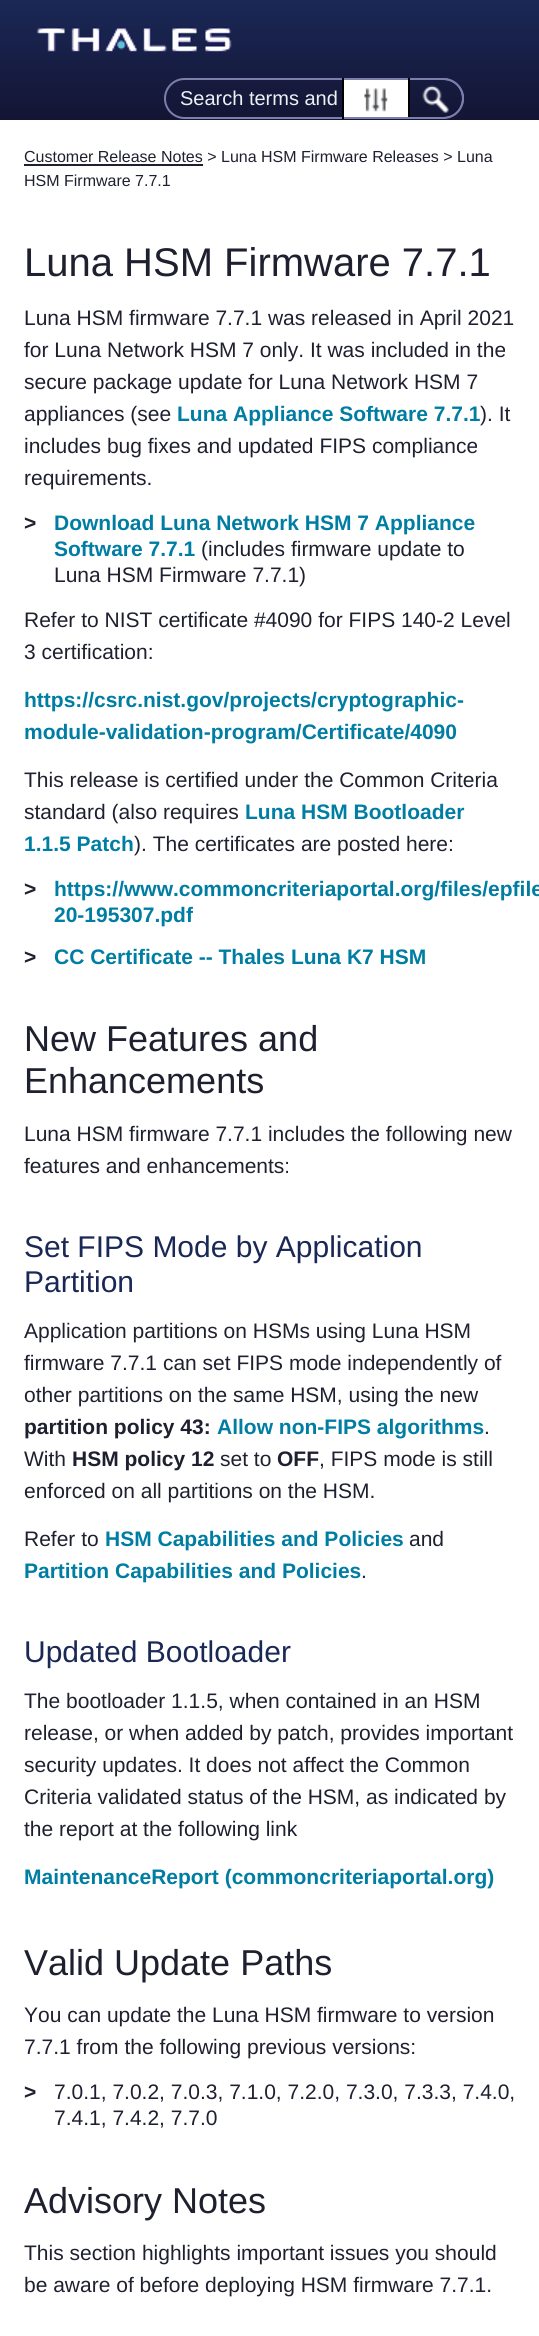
#include <cairo.h>
#include <math.h>
#include <stddef.h>

typedef struct { double x, y; const char *s; } line_t;
typedef struct { double x, y, w, h; unsigned color; } box_t;

static void ink(cairo_t *ctx, unsigned color) {
    cairo_set_source_rgb(ctx, (color >> 16) / 255.0, (color >> 8 & 255) / 255.0, (color & 255) / 255.0);
}

static void round_path(cairo_t *ctx, double x, double y, double w, double h, double r) {
    cairo_new_sub_path(ctx);
    cairo_arc(ctx, x + w - r, y + h - r, r, 0, M_PI / 2);
    cairo_arc(ctx, x + r, y + h - r, r, M_PI / 2, M_PI);
    cairo_arc(ctx, x + r, y + r, r, M_PI, 1.5 * M_PI);
    cairo_arc(ctx, x + w - r, y + r, r, 1.5 * M_PI, 2 * M_PI);
    cairo_close_path(ctx);
}

static void paste(cairo_t *ctx, const char *path, double x, double y, double w, double h) {
    cairo_surface_t *image = cairo_image_surface_create_from_png(path);
    cairo_save(ctx);
    cairo_set_source_surface(ctx, image, x, y);
    cairo_rectangle(ctx, x, y, w, h);
    cairo_fill(ctx);
    cairo_restore(ctx);
    cairo_surface_destroy(image);
}

int main(void) {
    cairo_surface_t *surface = cairo_image_surface_create(CAIRO_FORMAT_RGB24, 539, 2336);
    cairo_t *ctx = cairo_create(surface);
    cairo_font_options_t *options = cairo_font_options_create();
    cairo_font_options_set_hint_metrics(options, CAIRO_HINT_METRICS_OFF);
    cairo_font_options_set_hint_style(options, CAIRO_HINT_STYLE_NONE);
    cairo_set_font_options(ctx, options);
    cairo_set_miter_limit(ctx, 4);
    cairo_pattern_t *gradient;
    ink(ctx, 0xFFFFFF);
    cairo_paint(ctx);
    gradient = cairo_pattern_create_linear(270, 0, 270, 120);
    cairo_pattern_add_color_stop_rgba(gradient, 0, 0.102, 0.157, 0.337, 1);
    cairo_pattern_add_color_stop_rgba(gradient, 1, 0.078, 0.082, 0.204, 1);
    cairo_set_source(ctx, gradient);
    cairo_pattern_destroy(gradient);
    cairo_rectangle(ctx, 0, 0, 539, 120);
    cairo_fill(ctx);
    paste(ctx, "media/1.png", 37, 27, 195, 26);
    round_path(ctx, 165, 79, 298, 39, 19.5);
    ink(ctx, 0x7C7FAB);
    cairo_stroke(ctx);
    cairo_select_font_face(ctx, "Liberation Sans", CAIRO_FONT_SLANT_NORMAL, CAIRO_FONT_WEIGHT_NORMAL);
    cairo_set_font_size(ctx, 20);
    ink(ctx, 0xEDF1F4);
    cairo_move_to(ctx, 180, 105);
    cairo_show_text(ctx, "Search terms and");
    ink(ctx, 0xFFFFFF);
    cairo_rectangle(ctx, 344, 80, 64, 37);
    cairo_fill(ctx);
    paste(ctx, "media/2.png", 364, 88, 24, 24);
    {
        static const box_t items[] = {
            {408, 78, 2, 41, 0x000000},
            {408, 117, 2, 2, 0x7C7FAB},
            {342, 78, 2, 41, 0x000000},
        };
        for (size_t i = 0; i < sizeof items / sizeof *items; i++) {
            ink(ctx, items[i].color);
            cairo_rectangle(ctx, items[i].x, items[i].y, items[i].w, items[i].h);
            cairo_fill(ctx);
        }
    }
    paste(ctx, "media/3.png", 422, 85, 27, 28);
    ink(ctx, 0x7C7FAB);
    cairo_set_fill_rule(ctx, CAIRO_FILL_RULE_EVEN_ODD);
    cairo_new_path(ctx);
    cairo_move_to(ctx, 410, 78);
    cairo_line_to(ctx, 443, 78);
    cairo_curve_to(ctx, 454, 78, 464, 87, 464, 98);
    cairo_curve_to(ctx, 464, 109, 454, 118, 443, 118);
    cairo_line_to(ctx, 410, 118);
    cairo_close_path(ctx);
    cairo_move_to(ctx, 410, 80);
    cairo_line_to(ctx, 443, 80);
    cairo_curve_to(ctx, 454, 80, 462, 88, 462, 98);
    cairo_curve_to(ctx, 462, 109, 454, 117, 443, 117);
    cairo_line_to(ctx, 410, 117);
    cairo_close_path(ctx);
    cairo_fill(ctx);
    cairo_set_font_size(ctx, 16);
    ink(ctx, 0x1E202F);
    cairo_move_to(ctx, 24, 162);
    cairo_show_text(ctx, "Customer Release Notes > Luna HSM Firmware Releases > Luna");
    cairo_rectangle(ctx, 24, 164, 179, 2);
    cairo_fill(ctx);
    cairo_move_to(ctx, 24, 186);
    cairo_show_text(ctx, "HSM Firmware 7.7.1");
    cairo_set_font_size(ctx, 40);
    cairo_move_to(ctx, 24, 276);
    cairo_show_text(ctx, "Luna HSM Firmware 7.7.1");
    cairo_set_font_size(ctx, 21);
    {
        static const line_t items[] = {
            {24, 325, "Luna HSM firmware 7.7.1 was released in April 2021"},
            {24, 357, "for Luna Network HSM 7 only. It was included in the"},
            {24, 389, "secure package update for Luna Network HSM 7"},
            {24, 421, "appliances (see"},
        };
        for (size_t i = 0; i < sizeof items / sizeof *items; i++) {
            cairo_move_to(ctx, items[i].x, items[i].y);
            cairo_show_text(ctx, items[i].s);
        }
    }
    cairo_select_font_face(ctx, "Liberation Sans", CAIRO_FONT_SLANT_NORMAL, CAIRO_FONT_WEIGHT_BOLD);
    ink(ctx, 0x007DA3);
    cairo_move_to(ctx, 177, 421);
    cairo_show_text(ctx, "Luna Appliance Software 7.7.1");
    cairo_select_font_face(ctx, "Liberation Sans", CAIRO_FONT_SLANT_NORMAL, CAIRO_FONT_WEIGHT_NORMAL);
    ink(ctx, 0x1E202F);
    {
        static const line_t items[] = {
            {480, 421, "). It"},
            {24, 453, "includes bug fixes and updated FIPS compliance"},
            {24, 485, "requirements."},
        };
        for (size_t i = 0; i < sizeof items / sizeof *items; i++) {
            cairo_move_to(ctx, items[i].x, items[i].y);
            cairo_show_text(ctx, items[i].s);
        }
    }
    cairo_select_font_face(ctx, "Liberation Sans", CAIRO_FONT_SLANT_NORMAL, CAIRO_FONT_WEIGHT_BOLD);
    cairo_move_to(ctx, 24, 530);
    cairo_show_text(ctx, ">");
    ink(ctx, 0x007DA3);
    cairo_move_to(ctx, 54, 530);
    cairo_show_text(ctx, "Download Luna Network HSM 7 Appliance");
    cairo_move_to(ctx, 54, 556);
    cairo_show_text(ctx, "Software 7.7.1");
    cairo_select_font_face(ctx, "Liberation Sans", CAIRO_FONT_SLANT_NORMAL, CAIRO_FONT_WEIGHT_NORMAL);
    ink(ctx, 0x1E202F);
    {
        static const line_t items[] = {
            {201, 556, "(includes firmware update to"},
            {54, 582, "Luna HSM Firmware 7.7.1)"},
            {24, 627, "Refer to NIST certificate #4090 for FIPS 140-2 Level"},
            {24, 659, "3 certification:"},
        };
        for (size_t i = 0; i < sizeof items / sizeof *items; i++) {
            cairo_move_to(ctx, items[i].x, items[i].y);
            cairo_show_text(ctx, items[i].s);
        }
    }
    cairo_select_font_face(ctx, "Liberation Sans", CAIRO_FONT_SLANT_NORMAL, CAIRO_FONT_WEIGHT_BOLD);
    ink(ctx, 0x007DA3);
    cairo_move_to(ctx, 24, 707);
    cairo_show_text(ctx, "https://csrc.nist.gov/projects/cryptographic-");
    cairo_move_to(ctx, 24, 739);
    cairo_show_text(ctx, "module-validation-program/Certificate/4090");
    cairo_select_font_face(ctx, "Liberation Sans", CAIRO_FONT_SLANT_NORMAL, CAIRO_FONT_WEIGHT_NORMAL);
    ink(ctx, 0x1E202F);
    cairo_move_to(ctx, 24, 787);
    cairo_show_text(ctx, "This release is certified under the Common Criteria");
    cairo_move_to(ctx, 24, 819);
    cairo_show_text(ctx, "standard (also requires");
    cairo_select_font_face(ctx, "Liberation Sans", CAIRO_FONT_SLANT_NORMAL, CAIRO_FONT_WEIGHT_BOLD);
    ink(ctx, 0x007DA3);
    cairo_move_to(ctx, 245, 819);
    cairo_show_text(ctx, "Luna HSM Bootloader");
    cairo_move_to(ctx, 24, 851);
    cairo_show_text(ctx, "1.1.5 Patch");
    cairo_select_font_face(ctx, "Liberation Sans", CAIRO_FONT_SLANT_NORMAL, CAIRO_FONT_WEIGHT_NORMAL);
    ink(ctx, 0x1E202F);
    cairo_move_to(ctx, 134, 851);
    cairo_show_text(ctx, "). The certificates are posted here:");
    cairo_select_font_face(ctx, "Liberation Sans", CAIRO_FONT_SLANT_NORMAL, CAIRO_FONT_WEIGHT_BOLD);
    cairo_move_to(ctx, 24, 896);
    cairo_show_text(ctx, ">");
    ink(ctx, 0x007DA3);
    cairo_move_to(ctx, 54, 896);
    cairo_show_text(ctx, "https://www.commoncriteriaportal.org/files/epfile");
    cairo_move_to(ctx, 54, 922);
    cairo_show_text(ctx, "20-195307.pdf");
    ink(ctx, 0x1E202F);
    cairo_move_to(ctx, 24, 964);
    cairo_show_text(ctx, ">");
    ink(ctx, 0x007DA3);
    cairo_move_to(ctx, 54, 964);
    cairo_show_text(ctx, "CC Certificate -- Thales Luna K7 HSM");
    cairo_select_font_face(ctx, "Liberation Sans", CAIRO_FONT_SLANT_NORMAL, CAIRO_FONT_WEIGHT_NORMAL);
    cairo_set_font_size(ctx, 36);
    ink(ctx, 0x1E202F);
    cairo_move_to(ctx, 24, 1051);
    cairo_show_text(ctx, "New Features and");
    cairo_move_to(ctx, 24, 1093);
    cairo_show_text(ctx, "Enhancements");
    cairo_set_font_size(ctx, 21);
    cairo_move_to(ctx, 24, 1141);
    cairo_show_text(ctx, "Luna HSM firmware 7.7.1 includes the following new");
    cairo_move_to(ctx, 24, 1173);
    cairo_show_text(ctx, "features and enhancements:");
    cairo_set_font_size(ctx, 30);
    ink(ctx, 0x1A2856);
    cairo_move_to(ctx, 24, 1257);
    cairo_show_text(ctx, "Set FIPS Mode by Application");
    cairo_move_to(ctx, 24, 1292);
    cairo_show_text(ctx, "Partition");
    cairo_set_font_size(ctx, 21);
    ink(ctx, 0x1E202F);
    {
        static const line_t items[] = {
            {24, 1338, "Application partitions on HSMs using Luna HSM"},
            {24, 1370, "firmware 7.7.1 can set FIPS mode independently of"},
            {24, 1402, "other partitions on the same HSM, using the new"},
        };
        for (size_t i = 0; i < sizeof items / sizeof *items; i++) {
            cairo_move_to(ctx, items[i].x, items[i].y);
            cairo_show_text(ctx, items[i].s);
        }
    }
    cairo_select_font_face(ctx, "Liberation Sans", CAIRO_FONT_SLANT_NORMAL, CAIRO_FONT_WEIGHT_BOLD);
    cairo_move_to(ctx, 24, 1434);
    cairo_show_text(ctx, "partition policy 43:");
    ink(ctx, 0x007DA3);
    cairo_move_to(ctx, 217, 1434);
    cairo_show_text(ctx, "Allow non-FIPS algorithms");
    cairo_select_font_face(ctx, "Liberation Sans", CAIRO_FONT_SLANT_NORMAL, CAIRO_FONT_WEIGHT_NORMAL);
    ink(ctx, 0x1E202F);
    cairo_move_to(ctx, 484, 1434);
    cairo_show_text(ctx, ".");
    cairo_move_to(ctx, 24, 1466);
    cairo_show_text(ctx, "With");
    cairo_select_font_face(ctx, "Liberation Sans", CAIRO_FONT_SLANT_NORMAL, CAIRO_FONT_WEIGHT_BOLD);
    cairo_move_to(ctx, 72, 1466);
    cairo_show_text(ctx, "HSM policy 12");
    cairo_select_font_face(ctx, "Liberation Sans", CAIRO_FONT_SLANT_NORMAL, CAIRO_FONT_WEIGHT_NORMAL);
    cairo_move_to(ctx, 220, 1466);
    cairo_show_text(ctx, "set to");
    cairo_select_font_face(ctx, "Liberation Sans", CAIRO_FONT_SLANT_NORMAL, CAIRO_FONT_WEIGHT_BOLD);
    cairo_move_to(ctx, 277, 1466);
    cairo_show_text(ctx, "OFF");
    cairo_select_font_face(ctx, "Liberation Sans", CAIRO_FONT_SLANT_NORMAL, CAIRO_FONT_WEIGHT_NORMAL);
    {
        static const line_t items[] = {
            {319, 1466, ", FIPS mode is still"},
            {24, 1498, "enforced on all partitions on the HSM."},
            {24, 1546, "Refer to"},
        };
        for (size_t i = 0; i < sizeof items / sizeof *items; i++) {
            cairo_move_to(ctx, items[i].x, items[i].y);
            cairo_show_text(ctx, items[i].s);
        }
    }
    cairo_select_font_face(ctx, "Liberation Sans", CAIRO_FONT_SLANT_NORMAL, CAIRO_FONT_WEIGHT_BOLD);
    ink(ctx, 0x007DA3);
    cairo_move_to(ctx, 105, 1546);
    cairo_show_text(ctx, "HSM Capabilities and Policies");
    cairo_select_font_face(ctx, "Liberation Sans", CAIRO_FONT_SLANT_NORMAL, CAIRO_FONT_WEIGHT_NORMAL);
    ink(ctx, 0x1E202F);
    cairo_move_to(ctx, 409, 1546);
    cairo_show_text(ctx, "and");
    cairo_select_font_face(ctx, "Liberation Sans", CAIRO_FONT_SLANT_NORMAL, CAIRO_FONT_WEIGHT_BOLD);
    ink(ctx, 0x007DA3);
    cairo_move_to(ctx, 24, 1578);
    cairo_show_text(ctx, "Partition Capabilities and Policies");
    cairo_select_font_face(ctx, "Liberation Sans", CAIRO_FONT_SLANT_NORMAL, CAIRO_FONT_WEIGHT_NORMAL);
    ink(ctx, 0x1E202F);
    cairo_move_to(ctx, 361, 1578);
    cairo_show_text(ctx, ".");
    cairo_set_font_size(ctx, 30);
    ink(ctx, 0x1A2856);
    cairo_move_to(ctx, 24, 1662);
    cairo_show_text(ctx, "Updated Bootloader");
    cairo_set_font_size(ctx, 21);
    ink(ctx, 0x1E202F);
    {
        static const line_t items[] = {
            {24, 1708, "The bootloader 1.1.5, when contained in an HSM"},
            {24, 1740, "release, or when added by patch, provides important"},
            {24, 1772, "security updates. It does not affect the Common"},
            {24, 1804, "Criteria validated status of the HSM, as indicated by"},
            {24, 1836, "the report at the following link"},
        };
        for (size_t i = 0; i < sizeof items / sizeof *items; i++) {
            cairo_move_to(ctx, items[i].x, items[i].y);
            cairo_show_text(ctx, items[i].s);
        }
    }
    cairo_select_font_face(ctx, "Liberation Sans", CAIRO_FONT_SLANT_NORMAL, CAIRO_FONT_WEIGHT_BOLD);
    ink(ctx, 0x007DA3);
    cairo_move_to(ctx, 24, 1884);
    cairo_show_text(ctx, "MaintenanceReport (commoncriteriaportal.org)");
    cairo_select_font_face(ctx, "Liberation Sans", CAIRO_FONT_SLANT_NORMAL, CAIRO_FONT_WEIGHT_NORMAL);
    cairo_set_font_size(ctx, 36);
    ink(ctx, 0x1E202F);
    cairo_move_to(ctx, 24, 1975);
    cairo_show_text(ctx, "Valid Update Paths");
    cairo_set_font_size(ctx, 21);
    cairo_move_to(ctx, 24, 2022);
    cairo_show_text(ctx, "You can update the Luna HSM firmware to version");
    cairo_move_to(ctx, 24, 2054);
    cairo_show_text(ctx, "7.7.1 from the following previous versions:");
    cairo_select_font_face(ctx, "Liberation Sans", CAIRO_FONT_SLANT_NORMAL, CAIRO_FONT_WEIGHT_BOLD);
    cairo_move_to(ctx, 24, 2099);
    cairo_show_text(ctx, ">");
    cairo_select_font_face(ctx, "Liberation Sans", CAIRO_FONT_SLANT_NORMAL, CAIRO_FONT_WEIGHT_NORMAL);
    cairo_move_to(ctx, 54, 2099);
    cairo_show_text(ctx, "7.0.1, 7.0.2, 7.0.3, 7.1.0, 7.2.0, 7.3.0, 7.3.3, 7.4.0,");
    cairo_move_to(ctx, 54, 2125);
    cairo_show_text(ctx, "7.4.1, 7.4.2, 7.7.0");
    cairo_set_font_size(ctx, 36);
    cairo_move_to(ctx, 24, 2213);
    cairo_show_text(ctx, "Advisory Notes");
    cairo_set_font_size(ctx, 21);
    cairo_move_to(ctx, 24, 2260);
    cairo_show_text(ctx, "This section highlights important issues you should");
    cairo_move_to(ctx, 24, 2292);
    cairo_show_text(ctx, "be aware of before deploying HSM firmware 7.7.1.");
    cairo_surface_write_to_png(surface, "image.png");
    cairo_font_options_destroy(options);
    cairo_destroy(ctx);
    cairo_surface_destroy(surface);
    return 0;
}
